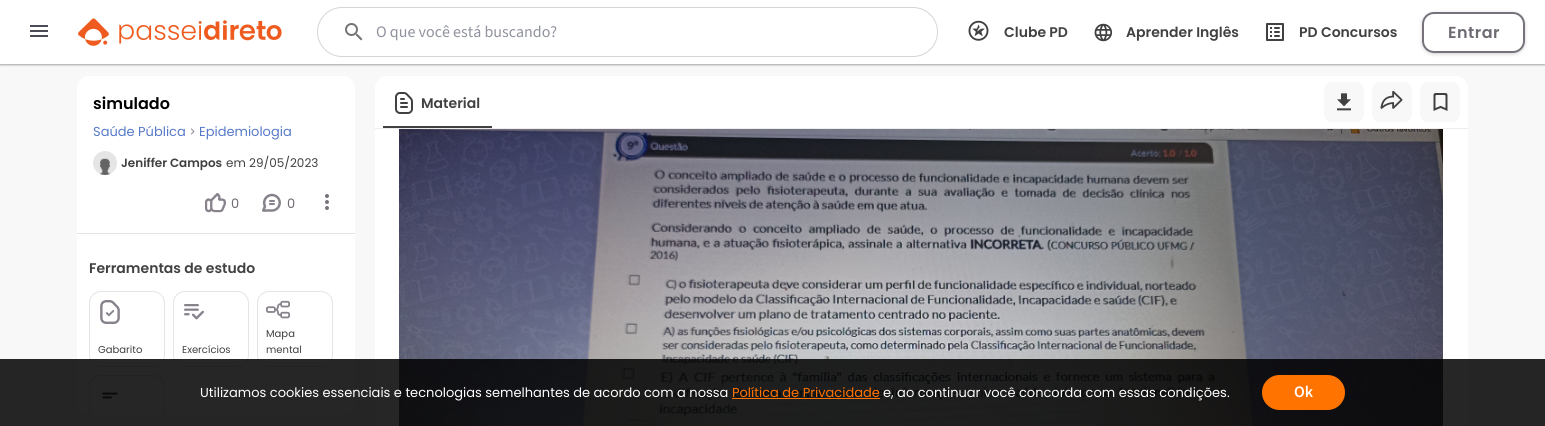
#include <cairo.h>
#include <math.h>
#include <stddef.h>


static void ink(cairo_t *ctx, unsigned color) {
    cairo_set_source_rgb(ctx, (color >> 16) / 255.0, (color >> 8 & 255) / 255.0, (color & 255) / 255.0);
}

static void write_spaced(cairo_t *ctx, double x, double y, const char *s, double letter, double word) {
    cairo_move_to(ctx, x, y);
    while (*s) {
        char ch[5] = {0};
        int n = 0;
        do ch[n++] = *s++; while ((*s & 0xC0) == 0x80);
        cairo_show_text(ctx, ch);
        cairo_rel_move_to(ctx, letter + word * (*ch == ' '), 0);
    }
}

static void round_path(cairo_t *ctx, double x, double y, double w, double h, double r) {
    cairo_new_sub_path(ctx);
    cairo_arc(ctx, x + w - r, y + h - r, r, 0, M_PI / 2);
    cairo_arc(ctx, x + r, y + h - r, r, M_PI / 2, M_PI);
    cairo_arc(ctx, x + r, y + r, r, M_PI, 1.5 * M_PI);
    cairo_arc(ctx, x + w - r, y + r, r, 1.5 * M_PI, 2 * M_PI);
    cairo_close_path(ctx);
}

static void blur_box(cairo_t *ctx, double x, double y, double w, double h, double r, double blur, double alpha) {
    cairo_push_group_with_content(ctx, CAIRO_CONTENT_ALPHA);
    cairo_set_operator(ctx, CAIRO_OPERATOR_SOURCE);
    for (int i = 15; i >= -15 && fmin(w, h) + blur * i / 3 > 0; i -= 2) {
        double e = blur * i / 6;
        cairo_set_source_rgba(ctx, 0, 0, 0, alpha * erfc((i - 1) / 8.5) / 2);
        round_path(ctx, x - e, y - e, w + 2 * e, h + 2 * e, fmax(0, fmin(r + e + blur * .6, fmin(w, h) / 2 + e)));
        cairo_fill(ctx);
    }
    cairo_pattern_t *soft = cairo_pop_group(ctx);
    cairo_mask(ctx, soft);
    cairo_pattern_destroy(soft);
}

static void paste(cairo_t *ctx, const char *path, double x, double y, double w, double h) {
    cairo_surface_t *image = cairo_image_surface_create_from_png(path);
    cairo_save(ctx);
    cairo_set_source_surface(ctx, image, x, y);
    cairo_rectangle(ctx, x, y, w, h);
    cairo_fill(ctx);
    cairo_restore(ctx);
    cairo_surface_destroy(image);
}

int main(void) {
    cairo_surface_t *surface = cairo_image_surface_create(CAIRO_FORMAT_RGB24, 1545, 426);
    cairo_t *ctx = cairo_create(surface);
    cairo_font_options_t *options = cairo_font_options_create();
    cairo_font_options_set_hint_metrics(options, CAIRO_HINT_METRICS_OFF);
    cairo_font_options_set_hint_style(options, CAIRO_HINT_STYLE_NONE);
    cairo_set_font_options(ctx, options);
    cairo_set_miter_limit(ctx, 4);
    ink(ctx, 0xF8F8F8);
    cairo_paint(ctx);
    ink(ctx, 0x000000);
    blur_box(ctx, 0, 1, 1545, 64, 0, 1, 0.34);
    ink(ctx, 0xFFFFFF);
    cairo_rectangle(ctx, 0, 0, 1545, 64);
    cairo_fill(ctx);
    paste(ctx, "media/1.png", 30, 25, 18, 12);
    paste(ctx, "media/2.png", 78, 18, 31, 28);
    paste(ctx, "media/3.png", 119, 20, 163, 24);
    round_path(ctx, 317.5, 7.5, 620, 49, 24.5);
    ink(ctx, 0xD5D5D6);
    cairo_set_line_width(ctx, 1);
    cairo_stroke(ctx);
    paste(ctx, "media/4.png", 345, 23, 18, 18);
    cairo_select_font_face(ctx, "Source Sans 3", CAIRO_FONT_SLANT_NORMAL, CAIRO_FONT_WEIGHT_NORMAL);
    cairo_set_font_size(ctx, 16);
    ink(ctx, 0x90939E);
    cairo_move_to(ctx, 376, 37);
    cairo_show_text(ctx, "O que você está buscando?");
    paste(ctx, "media/5.png", 968, 20, 21, 21);
    cairo_select_font_face(ctx, "Poppins SemiBold", CAIRO_FONT_SLANT_NORMAL, CAIRO_FONT_WEIGHT_NORMAL);
    cairo_set_font_size(ctx, 14);
    ink(ctx, 0x414042);
    cairo_move_to(ctx, 1004, 37);
    cairo_show_text(ctx, "Clube PD");
    paste(ctx, "media/6.png", 1094, 23, 19, 19);
    cairo_move_to(ctx, 1126, 37);
    cairo_show_text(ctx, "Aprender Inglês");
    paste(ctx, "media/7.png", 1266, 23, 18, 18);
    cairo_move_to(ctx, 1299, 37);
    cairo_show_text(ctx, "PD Concursos");
    cairo_save(ctx);
    cairo_set_fill_rule(ctx, CAIRO_FILL_RULE_EVEN_ODD);
    cairo_new_path(ctx);
    cairo_move_to(ctx, 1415, 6);
    cairo_line_to(ctx, 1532, 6);
    cairo_line_to(ctx, 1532, 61);
    cairo_line_to(ctx, 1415, 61);
    cairo_close_path(ctx);
    cairo_move_to(ctx, 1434, 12);
    cairo_line_to(ctx, 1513, 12);
    cairo_curve_to(ctx, 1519.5, 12, 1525, 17.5, 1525, 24);
    cairo_line_to(ctx, 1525, 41);
    cairo_curve_to(ctx, 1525, 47.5, 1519.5, 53, 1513, 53);
    cairo_line_to(ctx, 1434, 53);
    cairo_curve_to(ctx, 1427.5, 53, 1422, 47.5, 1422, 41);
    cairo_line_to(ctx, 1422, 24);
    cairo_curve_to(ctx, 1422, 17.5, 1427.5, 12, 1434, 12);
    cairo_close_path(ctx);
    cairo_clip(ctx);
    ink(ctx, 0x414042);
    blur_box(ctx, 1422, 13, 103, 41, 12, 2, 0.25);
    cairo_restore(ctx);
    round_path(ctx, 1423, 13, 101, 39, 11);
    ink(ctx, 0x76717B);
    cairo_set_line_width(ctx, 2);
    cairo_stroke(ctx);
    cairo_set_font_size(ctx, 16);
    ink(ctx, 0x6E6972);
    write_spaced(ctx, 1448, 38, "Entrar", 0.5, 0);
    ink(ctx, 0xFFFFFF);
    cairo_new_path(ctx);
    cairo_move_to(ctx, 89, 76);
    cairo_line_to(ctx, 343, 76);
    cairo_curve_to(ctx, 349.5, 76, 355, 81.5, 355, 88);
    cairo_line_to(ctx, 355, 234);
    cairo_line_to(ctx, 77, 234);
    cairo_line_to(ctx, 77, 88);
    cairo_curve_to(ctx, 77, 81.5, 82.5, 76, 89, 76);
    cairo_close_path(ctx);
    cairo_fill(ctx);
    ink(ctx, 0xE1E5E5);
    cairo_rectangle(ctx, 77, 233, 278, 1);
    cairo_fill(ctx);
    ink(ctx, 0x000000);
    cairo_move_to(ctx, 93, 109);
    cairo_show_text(ctx, "simulado");
    cairo_select_font_face(ctx, "Poppins", CAIRO_FONT_SLANT_NORMAL, CAIRO_FONT_WEIGHT_NORMAL);
    cairo_set_font_size(ctx, 13);
    ink(ctx, 0x5679C8);
    cairo_move_to(ctx, 93, 136);
    cairo_show_text(ctx, "Saúde Pública");
    paste(ctx, "media/8.png", 191, 128, 4, 7);
    cairo_move_to(ctx, 199, 136);
    cairo_show_text(ctx, "Epidemiologia");
    paste(ctx, "media/9.png", 93, 151, 24, 24);
    cairo_select_font_face(ctx, "Poppins SemiBold", CAIRO_FONT_SLANT_NORMAL, CAIRO_FONT_WEIGHT_NORMAL);
    cairo_set_font_size(ctx, 12);
    ink(ctx, 0x414042);
    cairo_move_to(ctx, 121, 167);
    cairo_show_text(ctx, "Jeniffer Campos");
    cairo_select_font_face(ctx, "Poppins", CAIRO_FONT_SLANT_NORMAL, CAIRO_FONT_WEIGHT_NORMAL);
    cairo_move_to(ctx, 226, 167);
    cairo_show_text(ctx, "em 29/05/2023");
    paste(ctx, "media/10.png", 205, 193, 21, 20);
    cairo_set_font_size(ctx, 13);
    ink(ctx, 0x6E6972);
    cairo_move_to(ctx, 231, 208);
    cairo_show_text(ctx, "0");
    paste(ctx, "media/11.png", 262, 193, 19, 19);
    cairo_move_to(ctx, 287, 208);
    cairo_show_text(ctx, "0");
    paste(ctx, "media/12.png", 325, 194, 4, 16);
    ink(ctx, 0xFFFFFF);
    cairo_new_path(ctx);
    cairo_move_to(ctx, 77, 234);
    cairo_line_to(ctx, 355, 234);
    cairo_line_to(ctx, 355, 402);
    cairo_curve_to(ctx, 355, 408.5, 349.5, 414, 343, 414);
    cairo_line_to(ctx, 89, 414);
    cairo_curve_to(ctx, 82.5, 414, 77, 408.5, 77, 402);
    cairo_close_path(ctx);
    cairo_fill(ctx);
    cairo_select_font_face(ctx, "Poppins SemiBold", CAIRO_FONT_SLANT_NORMAL, CAIRO_FONT_WEIGHT_NORMAL);
    cairo_set_font_size(ctx, 14);
    ink(ctx, 0x414042);
    cairo_move_to(ctx, 89, 273);
    cairo_show_text(ctx, "Ferramentas de estudo");
    round_path(ctx, 89.5, 291.5, 75, 75, 11.5);
    ink(ctx, 0xE1E5E5);
    cairo_set_line_width(ctx, 1);
    cairo_stroke(ctx);
    paste(ctx, "media/13.png", 100, 300, 20, 24);
    cairo_select_font_face(ctx, "Poppins", CAIRO_FONT_SLANT_NORMAL, CAIRO_FONT_WEIGHT_NORMAL);
    cairo_set_font_size(ctx, 10);
    ink(ctx, 0x414042);
    cairo_move_to(ctx, 98, 353);
    cairo_show_text(ctx, "Gabarito");
    round_path(ctx, 173.5, 291.5, 75, 75, 11.5);
    ink(ctx, 0xE1E5E5);
    cairo_stroke(ctx);
    paste(ctx, "media/14.png", 184, 304, 20, 16);
    ink(ctx, 0x414042);
    cairo_move_to(ctx, 182, 353);
    cairo_show_text(ctx, "Exercícios");
    round_path(ctx, 257.5, 291.5, 75, 75, 11.5);
    ink(ctx, 0xE1E5E5);
    cairo_stroke(ctx);
    paste(ctx, "media/15.png", 266, 300, 24, 19);
    ink(ctx, 0x414042);
    cairo_move_to(ctx, 266, 337);
    cairo_show_text(ctx, "Mapa");
    cairo_move_to(ctx, 266, 353);
    cairo_show_text(ctx, "mental");
    ink(ctx, 0xE1E5E5);
    cairo_new_path(ctx);
    cairo_move_to(ctx, 101, 375);
    cairo_curve_to(ctx, 94, 375, 89, 380, 89, 387);
    cairo_line_to(ctx, 89, 414);
    cairo_line_to(ctx, 90, 414);
    cairo_line_to(ctx, 90, 387);
    cairo_curve_to(ctx, 90, 381, 95, 376, 101, 376);
    cairo_line_to(ctx, 153, 376);
    cairo_curve_to(ctx, 159, 376, 164, 381, 164, 387);
    cairo_line_to(ctx, 164, 414);
    cairo_line_to(ctx, 165, 414);
    cairo_line_to(ctx, 165, 387);
    cairo_curve_to(ctx, 165, 380, 160, 375, 153, 375);
    cairo_close_path(ctx);
    cairo_fill(ctx);
    paste(ctx, "media/16.png", 102, 392, 16, 7);
    ink(ctx, 0xFFFFFF);
    cairo_new_path(ctx);
    cairo_move_to(ctx, 387, 76);
    cairo_line_to(ctx, 1456, 76);
    cairo_curve_to(ctx, 1462.5, 76, 1468, 81.5, 1468, 88);
    cairo_line_to(ctx, 1468, 129);
    cairo_line_to(ctx, 375, 129);
    cairo_line_to(ctx, 375, 88);
    cairo_curve_to(ctx, 375, 81.5, 380.5, 76, 387, 76);
    cairo_close_path(ctx);
    cairo_fill(ctx);
    ink(ctx, 0xEDEDED);
    cairo_rectangle(ctx, 375, 128, 1093, 1);
    cairo_fill(ctx);
    ink(ctx, 0x414042);
    cairo_rectangle(ctx, 383, 126, 109, 2);
    cairo_fill(ctx);
    paste(ctx, "media/17.png", 395, 92, 18, 22);
    cairo_select_font_face(ctx, "Poppins SemiBold", CAIRO_FONT_SLANT_NORMAL, CAIRO_FONT_WEIGHT_NORMAL);
    cairo_set_font_size(ctx, 14);
    cairo_move_to(ctx, 421, 108);
    cairo_show_text(ctx, "Material");
    ink(ctx, 0xF8F8F8);
    round_path(ctx, 1324, 82, 40, 40, 8);
    cairo_fill(ctx);
    paste(ctx, "media/18.png", 1337, 93, 14, 18);
    round_path(ctx, 1372, 82, 40, 40, 8);
    cairo_fill(ctx);
    paste(ctx, "media/19.png", 1380, 90, 23, 19);
    round_path(ctx, 1420, 82, 40, 40, 8);
    cairo_fill(ctx);
    paste(ctx, "media/20.png", 1433, 93, 15, 18);
    ink(ctx, 0xFFFFFF);
    cairo_rectangle(ctx, 375, 129, 1093, 297);
    cairo_fill(ctx);
    paste(ctx, "media/21.png", 399, 129, 1044, 297);
    cairo_set_source_rgba(ctx, 0, 0, 0, 0.85);
    cairo_rectangle(ctx, 0, 359, 1545, 67);
    cairo_fill(ctx);
    cairo_select_font_face(ctx, "Poppins", CAIRO_FONT_SLANT_NORMAL, CAIRO_FONT_WEIGHT_NORMAL);
    cairo_set_font_size(ctx, 13);
    ink(ctx, 0xFFFFFF);
    cairo_move_to(ctx, 200, 397);
    cairo_show_text(ctx, "Utilizamos cookies essenciais e tecnologias semelhantes de acordo com a nossa");
    ink(ctx, 0xFF7300);
    cairo_move_to(ctx, 732, 397);
    cairo_show_text(ctx, "Política de Privacidade");
    cairo_rectangle(ctx, 732, 398, 148, 1);
    cairo_fill(ctx);
    ink(ctx, 0xFFFFFF);
    cairo_move_to(ctx, 883, 397);
    cairo_show_text(ctx, "e, ao continuar você concorda com essas condições.");
    ink(ctx, 0xFF7300);
    round_path(ctx, 1262, 375, 83, 35, 17.5);
    cairo_fill(ctx);
    cairo_select_font_face(ctx, "Source Sans 3 SemiBold", CAIRO_FONT_SLANT_NORMAL, CAIRO_FONT_WEIGHT_NORMAL);
    cairo_set_font_size(ctx, 16);
    ink(ctx, 0xFFFFFF);
    cairo_move_to(ctx, 1294, 397);
    cairo_show_text(ctx, "Ok");
    cairo_surface_write_to_png(surface, "image.png");
    cairo_font_options_destroy(options);
    cairo_destroy(ctx);
    cairo_surface_destroy(surface);
    return 0;
}
